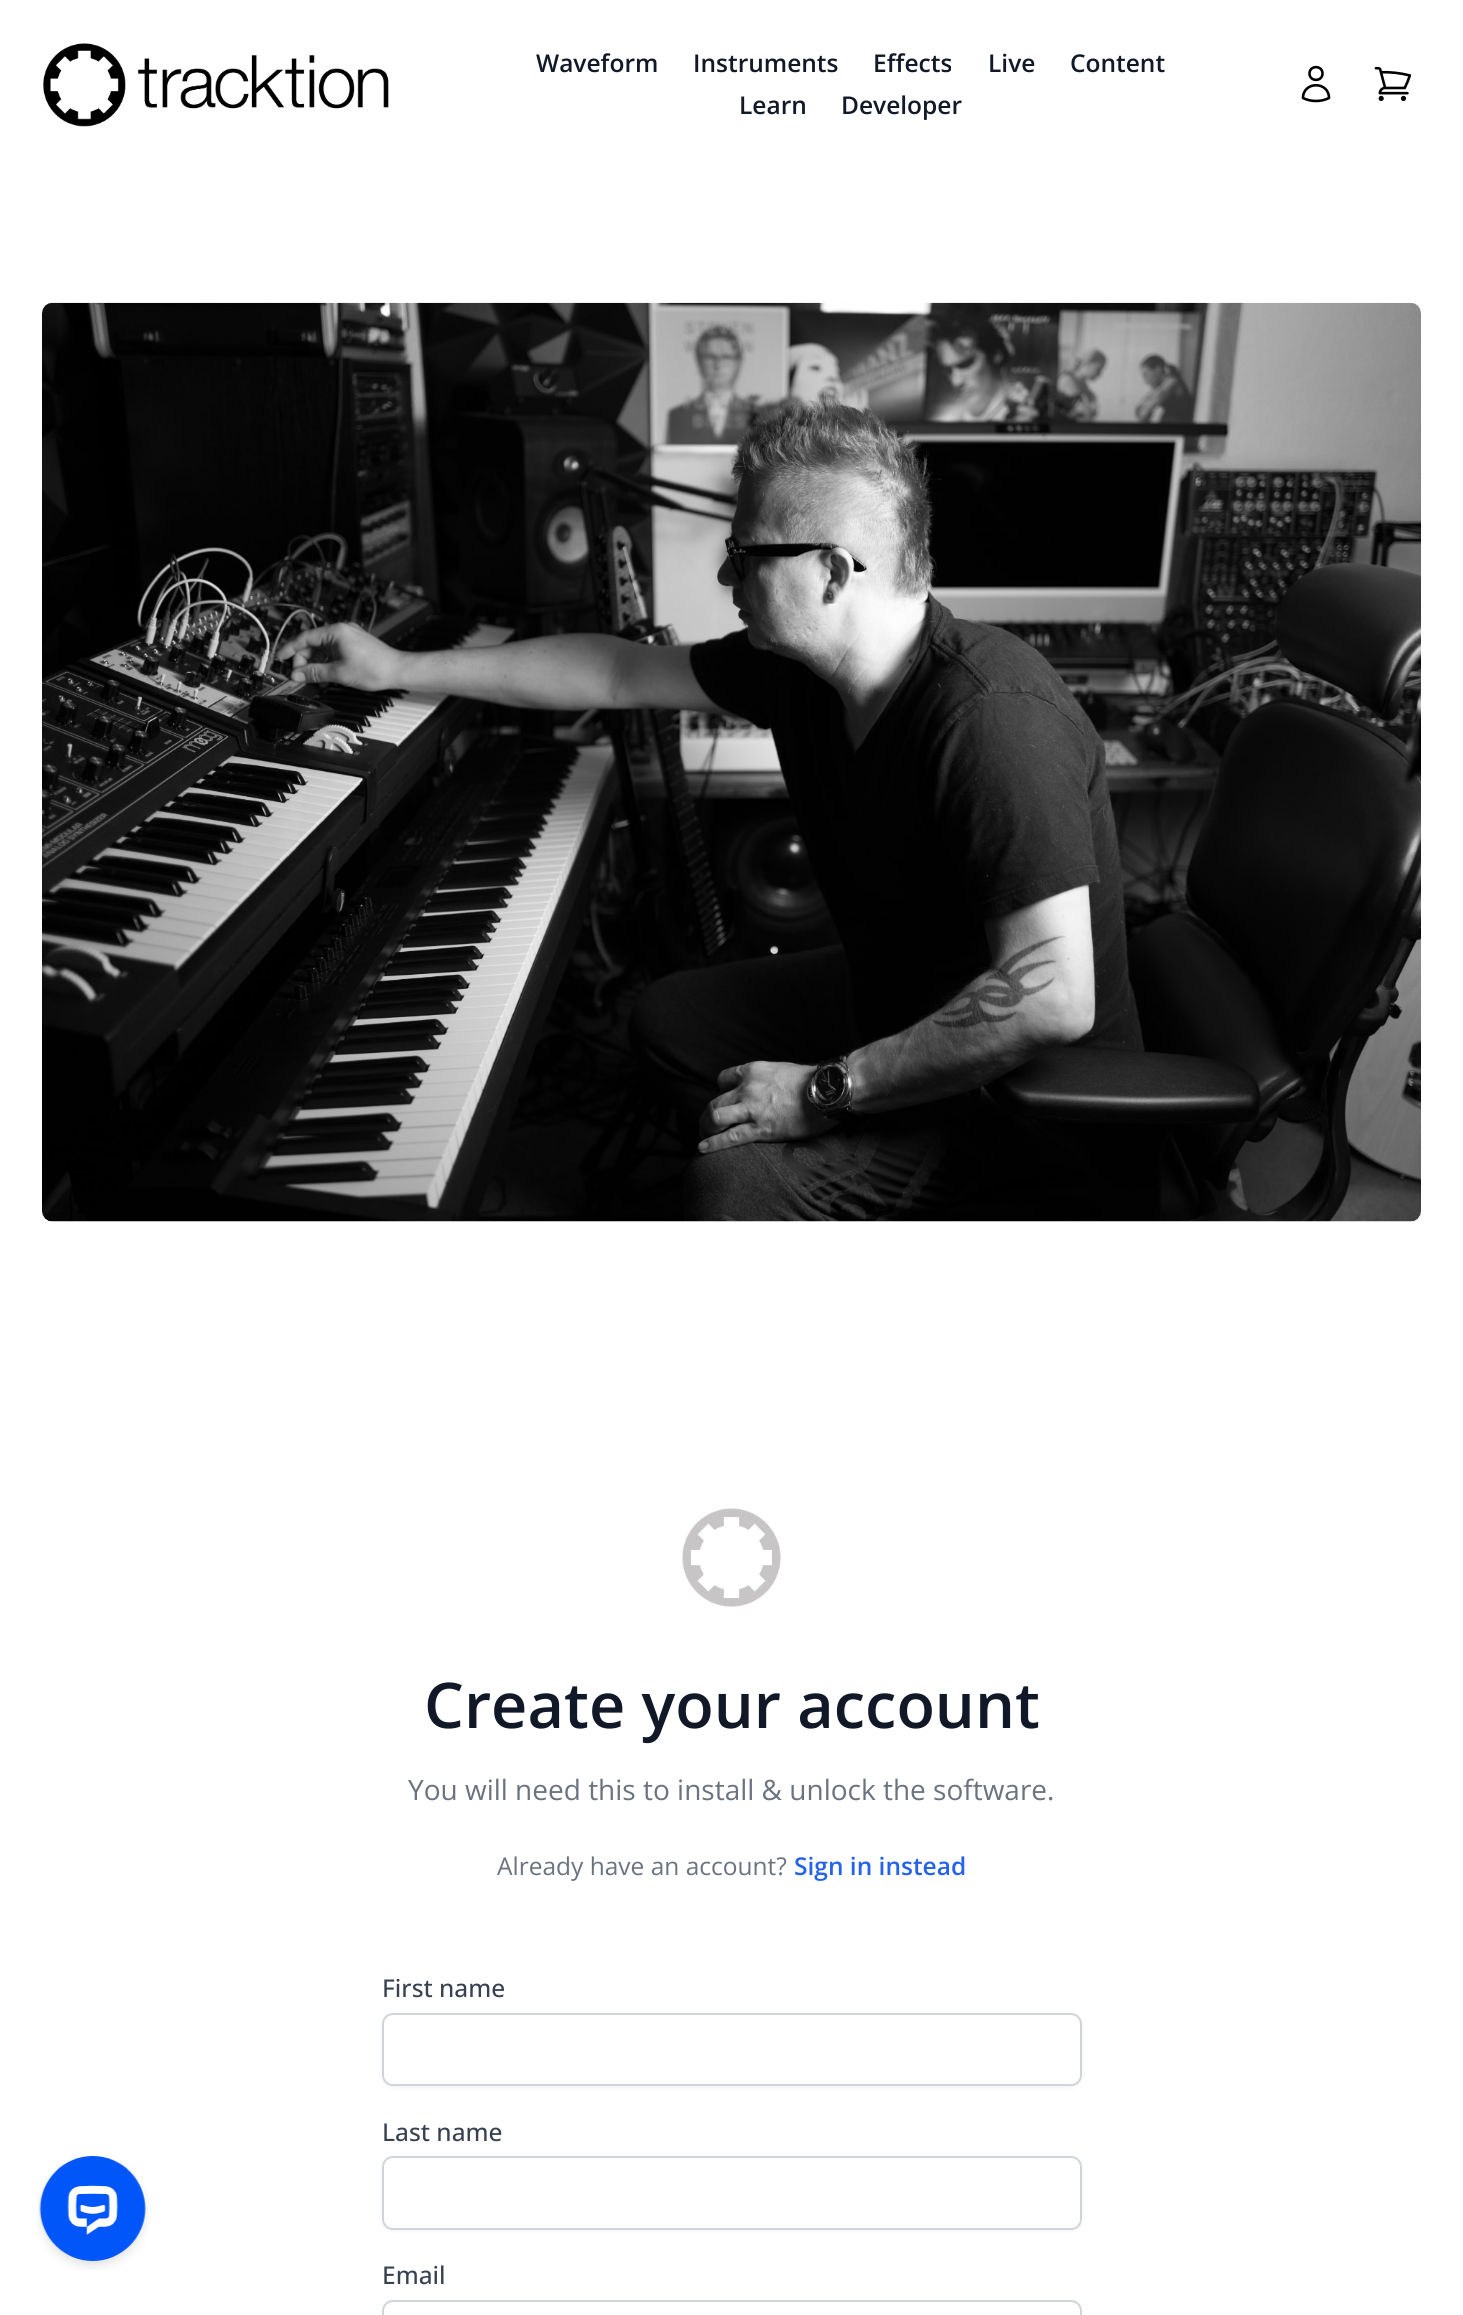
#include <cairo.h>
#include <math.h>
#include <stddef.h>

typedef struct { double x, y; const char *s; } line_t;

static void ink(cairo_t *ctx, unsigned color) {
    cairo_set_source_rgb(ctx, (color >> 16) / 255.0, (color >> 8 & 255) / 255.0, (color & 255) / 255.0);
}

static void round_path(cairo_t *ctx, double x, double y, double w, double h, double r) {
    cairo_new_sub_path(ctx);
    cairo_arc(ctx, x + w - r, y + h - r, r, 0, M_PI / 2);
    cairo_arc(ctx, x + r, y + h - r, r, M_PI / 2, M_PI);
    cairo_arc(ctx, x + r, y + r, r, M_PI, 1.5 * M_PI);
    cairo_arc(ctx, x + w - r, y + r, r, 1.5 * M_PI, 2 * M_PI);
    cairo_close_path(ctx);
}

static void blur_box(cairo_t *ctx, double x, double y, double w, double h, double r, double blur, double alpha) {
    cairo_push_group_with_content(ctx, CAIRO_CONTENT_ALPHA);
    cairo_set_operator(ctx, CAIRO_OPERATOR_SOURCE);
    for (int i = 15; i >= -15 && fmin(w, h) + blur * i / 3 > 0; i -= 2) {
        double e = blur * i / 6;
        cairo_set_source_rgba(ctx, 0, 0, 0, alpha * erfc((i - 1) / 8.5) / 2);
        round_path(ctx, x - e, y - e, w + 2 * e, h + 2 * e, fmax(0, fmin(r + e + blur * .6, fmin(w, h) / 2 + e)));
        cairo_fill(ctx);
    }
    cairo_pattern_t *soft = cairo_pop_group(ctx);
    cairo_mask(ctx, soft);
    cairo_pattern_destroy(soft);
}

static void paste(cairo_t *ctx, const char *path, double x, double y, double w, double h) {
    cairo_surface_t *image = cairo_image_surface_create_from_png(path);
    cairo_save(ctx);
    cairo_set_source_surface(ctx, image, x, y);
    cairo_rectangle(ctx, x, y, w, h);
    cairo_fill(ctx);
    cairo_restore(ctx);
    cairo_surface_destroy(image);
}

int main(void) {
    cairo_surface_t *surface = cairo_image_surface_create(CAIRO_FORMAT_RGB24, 1463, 2315);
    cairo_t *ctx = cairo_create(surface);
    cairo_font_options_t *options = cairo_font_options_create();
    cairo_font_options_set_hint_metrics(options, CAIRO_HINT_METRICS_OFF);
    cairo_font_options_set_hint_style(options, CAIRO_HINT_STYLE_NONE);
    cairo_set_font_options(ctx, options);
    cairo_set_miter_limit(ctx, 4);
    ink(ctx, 0xFFFFFF);
    cairo_paint(ctx);
    paste(ctx, "media/1.png", 37, 2156, 112, 114);
    paste(ctx, "media/2.png", 43, 43, 346, 84);
    cairo_select_font_face(ctx, "Open Sans SemiBold", CAIRO_FONT_SLANT_NORMAL, CAIRO_FONT_WEIGHT_NORMAL);
    cairo_set_font_size(ctx, 24.5);
    ink(ctx, 0x111827);
    {
        static const line_t items[] = {
            {536, 72, "Waveform"},
            {693, 72, "Instruments"},
            {873, 72, "Effects"},
            {988, 72, "Live"},
            {1070, 72, "Content"},
            {739, 114, "Learn"},
            {841, 114, "Developer"},
        };
        for (size_t i = 0; i < sizeof items / sizeof *items; i++) {
            cairo_move_to(ctx, items[i].x, items[i].y);
            cairo_show_text(ctx, items[i].s);
        }
    }
    cairo_new_path(ctx);
    cairo_move_to(ctx, 1322.5, 73.5);
    cairo_curve_to(ctx, 1322.5, 82, 1309.5, 82, 1309.5, 73.5);
    cairo_curve_to(ctx, 1309.5, 65, 1322.5, 65, 1322.5, 73.5);
    cairo_close_path(ctx);
    cairo_move_to(ctx, 1303, 98);
    cairo_curve_to(ctx, 1303, 81, 1329, 81, 1329, 98);
    cairo_curve_to(ctx, 1321, 102, 1311, 102, 1303, 98);
    cairo_close_path(ctx);
    ink(ctx, 0x000000);
    cairo_set_line_width(ctx, 2.6);
    cairo_set_line_cap(ctx, CAIRO_LINE_CAP_ROUND);
    cairo_set_line_join(ctx, CAIRO_LINE_JOIN_ROUND);
    cairo_stroke(ctx);
    paste(ctx, "media/3.png", 1374, 66, 38, 35);
    paste(ctx, "media/4.png", 42, 302, 1379, 920);
    paste(ctx, "media/5.png", 682, 1508, 99, 99);
    cairo_set_font_size(ctx, 63);
    ink(ctx, 0x111827);
    cairo_move_to(ctx, 424, 1728);
    cairo_show_text(ctx, "Create your account");
    cairo_select_font_face(ctx, "Open Sans", CAIRO_FONT_SLANT_NORMAL, CAIRO_FONT_WEIGHT_NORMAL);
    cairo_set_font_size(ctx, 28);
    ink(ctx, 0x6B7280);
    cairo_move_to(ctx, 408, 1800);
    cairo_show_text(ctx, "You will need this to install & unlock the software.");
    cairo_set_font_size(ctx, 24.5);
    cairo_move_to(ctx, 497, 1875);
    cairo_show_text(ctx, "Already have an account?");
    cairo_select_font_face(ctx, "Open Sans SemiBold", CAIRO_FONT_SLANT_NORMAL, CAIRO_FONT_WEIGHT_NORMAL);
    ink(ctx, 0x2563EB);
    cairo_move_to(ctx, 794, 1875);
    cairo_show_text(ctx, "Sign in instead");
    cairo_select_font_face(ctx, "Open Sans Medium", CAIRO_FONT_SLANT_NORMAL, CAIRO_FONT_WEIGHT_NORMAL);
    ink(ctx, 0x374151);
    cairo_move_to(ctx, 382, 1997);
    cairo_show_text(ctx, "First name");
    ink(ctx, 0x000000);
    blur_box(ctx, 382, 2014, 700, 74, 11, 2, 0.05);
    ink(ctx, 0xFFFFFF);
    round_path(ctx, 383, 2014, 698, 71, 10);
    cairo_fill_preserve(ctx);
    ink(ctx, 0xD1D5DB);
    cairo_set_line_width(ctx, 2);
    cairo_set_line_cap(ctx, CAIRO_LINE_CAP_BUTT);
    cairo_set_line_join(ctx, CAIRO_LINE_JOIN_MITER);
    cairo_stroke(ctx);
    ink(ctx, 0x374151);
    cairo_move_to(ctx, 382, 2141);
    cairo_show_text(ctx, "Last name");
    ink(ctx, 0x000000);
    blur_box(ctx, 382, 2158, 700, 73, 11, 2, 0.05);
    ink(ctx, 0xFFFFFF);
    round_path(ctx, 383, 2157, 698, 72, 10);
    cairo_fill_preserve(ctx);
    ink(ctx, 0xD1D5DB);
    cairo_stroke(ctx);
    ink(ctx, 0x374151);
    cairo_move_to(ctx, 382, 2284);
    cairo_show_text(ctx, "Email");
    round_path(ctx, 383, 2301, 698, 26, 10);
    ink(ctx, 0xD1D5DB);
    cairo_stroke(ctx);
    cairo_surface_write_to_png(surface, "image.png");
    cairo_font_options_destroy(options);
    cairo_destroy(ctx);
    cairo_surface_destroy(surface);
    return 0;
}
